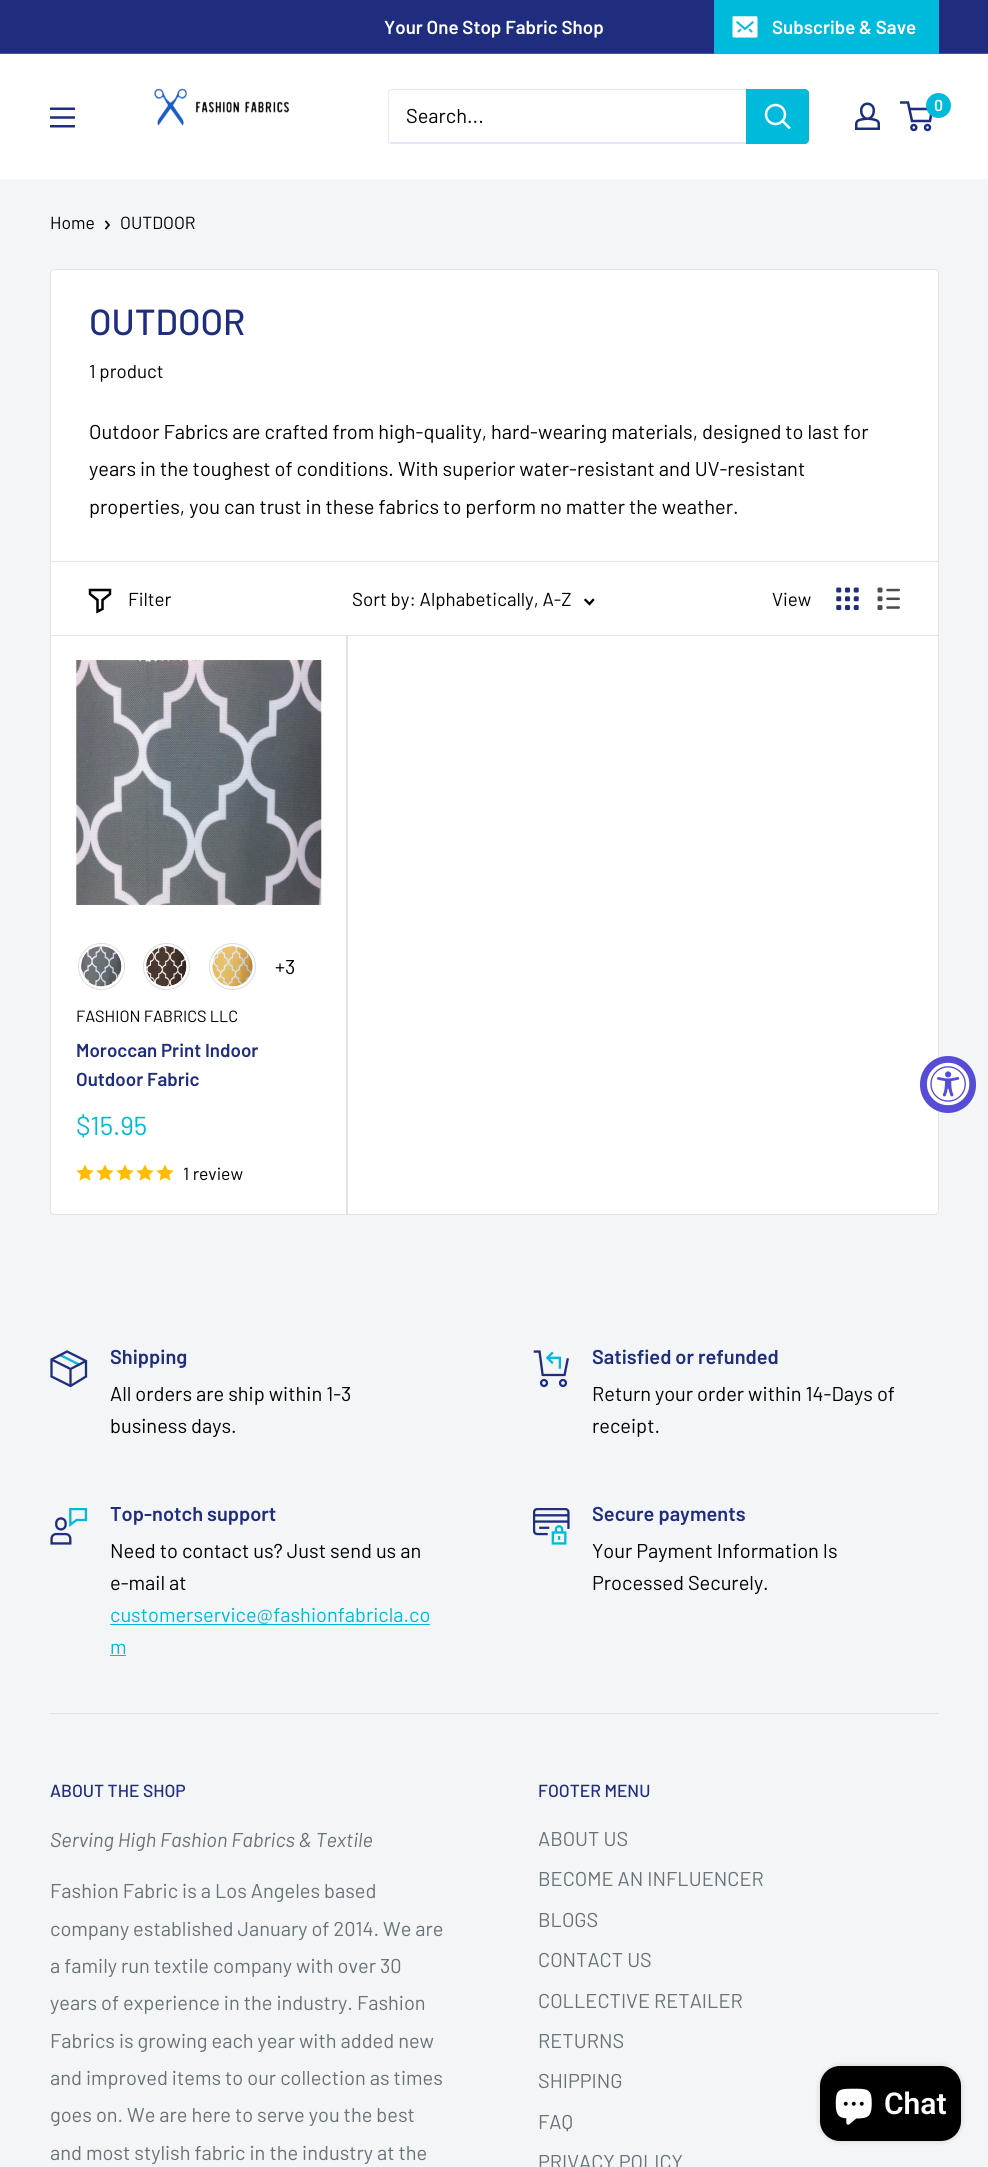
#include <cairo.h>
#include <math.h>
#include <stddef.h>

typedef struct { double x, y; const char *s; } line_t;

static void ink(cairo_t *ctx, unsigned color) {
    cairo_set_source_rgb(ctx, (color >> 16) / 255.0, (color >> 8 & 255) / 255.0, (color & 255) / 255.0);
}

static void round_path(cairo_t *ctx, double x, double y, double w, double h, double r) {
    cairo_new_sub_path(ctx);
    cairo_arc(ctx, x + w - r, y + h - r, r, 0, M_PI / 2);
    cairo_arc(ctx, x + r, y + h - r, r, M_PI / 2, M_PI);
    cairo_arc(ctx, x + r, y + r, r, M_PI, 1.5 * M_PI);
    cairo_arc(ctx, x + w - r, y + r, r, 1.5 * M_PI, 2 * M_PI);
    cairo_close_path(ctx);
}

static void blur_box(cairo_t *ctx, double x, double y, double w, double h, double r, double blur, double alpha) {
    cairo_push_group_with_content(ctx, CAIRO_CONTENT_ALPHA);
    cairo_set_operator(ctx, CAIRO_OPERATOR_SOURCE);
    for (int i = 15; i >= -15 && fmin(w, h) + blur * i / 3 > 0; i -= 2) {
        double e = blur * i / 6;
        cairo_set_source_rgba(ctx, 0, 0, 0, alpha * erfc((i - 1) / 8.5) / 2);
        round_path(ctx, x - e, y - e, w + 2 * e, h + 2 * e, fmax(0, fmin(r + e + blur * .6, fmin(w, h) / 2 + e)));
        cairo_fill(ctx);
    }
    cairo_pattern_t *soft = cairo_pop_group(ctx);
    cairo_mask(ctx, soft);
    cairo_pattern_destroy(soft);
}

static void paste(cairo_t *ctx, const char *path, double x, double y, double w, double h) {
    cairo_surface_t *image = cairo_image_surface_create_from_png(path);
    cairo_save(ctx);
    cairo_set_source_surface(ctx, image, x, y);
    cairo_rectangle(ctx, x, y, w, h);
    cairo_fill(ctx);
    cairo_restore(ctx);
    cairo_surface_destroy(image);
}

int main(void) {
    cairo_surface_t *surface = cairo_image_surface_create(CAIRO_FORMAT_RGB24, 988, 2167);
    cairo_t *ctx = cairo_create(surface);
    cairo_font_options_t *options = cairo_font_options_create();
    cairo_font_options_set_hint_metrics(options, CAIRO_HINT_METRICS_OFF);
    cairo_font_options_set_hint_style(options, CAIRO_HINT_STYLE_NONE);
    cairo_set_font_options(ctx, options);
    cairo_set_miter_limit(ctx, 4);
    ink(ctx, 0xF3F5F6);
    cairo_paint(ctx);
    ink(ctx, 0x1E2D7D);
    cairo_rectangle(ctx, 0, 0, 988, 53);
    cairo_fill(ctx);
    ink(ctx, 0x46549F);
    cairo_rectangle(ctx, 0, 53, 988, 1);
    cairo_fill(ctx);
    cairo_select_font_face(ctx, "Barlow SemiBold", CAIRO_FONT_SLANT_NORMAL, CAIRO_FONT_WEIGHT_NORMAL);
    cairo_set_font_size(ctx, 18.75);
    ink(ctx, 0xFFFFFF);
    cairo_move_to(ctx, 384, 34);
    cairo_show_text(ctx, "Your One Stop Fabric Shop");
    ink(ctx, 0x00BADB);
    cairo_new_path(ctx);
    cairo_move_to(ctx, 714, 52);
    cairo_line_to(ctx, 714, 54);
    cairo_line_to(ctx, 939, 54);
    cairo_line_to(ctx, 939, 1);
    cairo_line_to(ctx, 939, 52);
    cairo_close_path(ctx);
    cairo_fill(ctx);
    cairo_rectangle(ctx, 714, 0, 225, 52);
    cairo_fill(ctx);
    paste(ctx, "media/1.png", 732, 16, 26, 22);
    ink(ctx, 0xFFFFFF);
    cairo_move_to(ctx, 772, 34);
    cairo_show_text(ctx, "Subscribe & Save");
    cairo_rectangle(ctx, 0, 54, 988, 125);
    cairo_fill(ctx);
    paste(ctx, "media/2.png", 154, 88, 136, 38);
    paste(ctx, "media/3.png", 855, 102, 25, 28);
    cairo_arc(ctx, 913.8, 127.5, 2.5, 0, 2 * M_PI);
    ink(ctx, 0x1E2D7D);
    cairo_set_line_width(ctx, 2.5);
    cairo_stroke(ctx);
    cairo_arc(ctx, 927.5, 127.5, 2.5, 0, 2 * M_PI);
    cairo_stroke(ctx);
    cairo_new_path(ctx);
    cairo_move_to(ctx, 909, 109);
    cairo_line_to(ctx, 932, 109);
    cairo_line_to(ctx, 930, 121);
    cairo_line_to(ctx, 912, 121);
    cairo_line_to(ctx, 908, 102.5);
    cairo_line_to(ctx, 900, 102.5);
    cairo_stroke(ctx);
    ink(ctx, 0x00BADB);
    cairo_arc(ctx, 938.5, 105.5, 12.5, 0, 2 * M_PI);
    cairo_fill(ctx);
    cairo_set_font_size(ctx, 16);
    ink(ctx, 0xFFFFFF);
    cairo_move_to(ctx, 934, 111);
    cairo_show_text(ctx, "0");
    paste(ctx, "media/4.png", 50, 107, 25, 21);
    ink(ctx, 0xE3E7FA);
    cairo_new_path(ctx);
    cairo_move_to(ctx, 388, 142);
    cairo_curve_to(ctx, 389, 143, 390, 144, 392, 144);
    cairo_line_to(ctx, 805, 144);
    cairo_curve_to(ctx, 807, 144, 809, 142, 809, 140);
    cairo_line_to(ctx, 809, 93);
    cairo_curve_to(ctx, 809, 92, 809, 91, 808, 90);
    cairo_line_to(ctx, 808, 131);
    cairo_curve_to(ctx, 808, 135, 810, 142, 804, 142);
    cairo_close_path(ctx);
    cairo_fill(ctx);
    cairo_new_path(ctx);
    cairo_move_to(ctx, 392, 90);
    cairo_line_to(ctx, 806, 90);
    cairo_line_to(ctx, 808, 91);
    cairo_curve_to(ctx, 808, 90, 806, 89, 805, 89);
    cairo_line_to(ctx, 392, 89);
    cairo_curve_to(ctx, 390, 89, 388, 91, 388, 93);
    cairo_line_to(ctx, 388, 140);
    cairo_curve_to(ctx, 388, 141, 389, 142, 389, 143);
    cairo_line_to(ctx, 389, 102);
    cairo_curve_to(ctx, 389, 101, 387, 90, 392, 90);
    cairo_close_path(ctx);
    cairo_fill(ctx);
    cairo_select_font_face(ctx, "Barlow", CAIRO_FONT_SLANT_NORMAL, CAIRO_FONT_WEIGHT_NORMAL);
    cairo_set_font_size(ctx, 20);
    ink(ctx, 0x000000);
    cairo_move_to(ctx, 406, 123);
    cairo_show_text(ctx, "Search...");
    ink(ctx, 0x00BADB);
    cairo_new_path(ctx);
    cairo_move_to(ctx, 746, 89);
    cairo_line_to(ctx, 805, 89);
    cairo_curve_to(ctx, 807, 89, 809, 91, 809, 93);
    cairo_line_to(ctx, 809, 140);
    cairo_curve_to(ctx, 809, 142, 807, 144, 805, 144);
    cairo_line_to(ctx, 746, 144);
    cairo_close_path(ctx);
    cairo_fill(ctx);
    cairo_new_path(ctx);
    cairo_move_to(ctx, 789, 127.5);
    cairo_line_to(ctx, 782.5, 121);
    ink(ctx, 0xFFFFFF);
    cairo_set_line_cap(ctx, CAIRO_LINE_CAP_SQUARE);
    cairo_stroke(ctx);
    cairo_arc(ctx, 775.5, 114.5, 9.5, 0, 2 * M_PI);
    cairo_set_line_cap(ctx, CAIRO_LINE_CAP_BUTT);
    cairo_stroke(ctx);
    cairo_set_font_size(ctx, 17.5);
    ink(ctx, 0x000000);
    cairo_move_to(ctx, 50, 229);
    cairo_show_text(ctx, "Home");
    cairo_new_path(ctx);
    cairo_move_to(ctx, 106, 221.5);
    cairo_line_to(ctx, 109, 225);
    cairo_line_to(ctx, 106, 228.5);
    cairo_set_line_width(ctx, 1.7);
    cairo_set_line_cap(ctx, CAIRO_LINE_CAP_SQUARE);
    cairo_stroke(ctx);
    cairo_move_to(ctx, 120, 229);
    cairo_show_text(ctx, "OUTDOOR");
    ink(ctx, 0xFFFFFF);
    round_path(ctx, 50.5, 269.5, 888, 945, 3.5);
    cairo_fill_preserve(ctx);
    ink(ctx, 0xE1E3E4);
    cairo_set_line_width(ctx, 1);
    cairo_set_line_cap(ctx, CAIRO_LINE_CAP_BUTT);
    cairo_stroke(ctx);
    cairo_select_font_face(ctx, "Barlow Medium", CAIRO_FONT_SLANT_NORMAL, CAIRO_FONT_WEIGHT_NORMAL);
    cairo_set_font_size(ctx, 36.25);
    ink(ctx, 0x1E2D7D);
    cairo_move_to(ctx, 89, 335);
    cairo_show_text(ctx, "OUTDOOR");
    cairo_select_font_face(ctx, "Barlow", CAIRO_FONT_SLANT_NORMAL, CAIRO_FONT_WEIGHT_NORMAL);
    cairo_set_font_size(ctx, 18.75);
    ink(ctx, 0x000000);
    cairo_move_to(ctx, 89, 378);
    cairo_show_text(ctx, "1 product");
    cairo_set_font_size(ctx, 20);
    {
        static const line_t items[] = {
            {89, 439, "Outdoor Fabrics are crafted from high-quality, hard-wearing materials, designed to last for"},
            {89, 476, "years in the toughest of conditions. With superior water-resistant and UV-resistant"},
            {89, 514, "properties, you can trust in these fabrics to perform no matter the weather."},
        };
        for (size_t i = 0; i < sizeof items / sizeof *items; i++) {
            cairo_move_to(ctx, items[i].x, items[i].y);
            cairo_show_text(ctx, items[i].s);
        }
    }
    ink(ctx, 0xE1E3E4);
    cairo_new_path(ctx);
    cairo_move_to(ctx, 51, 561);
    cairo_line_to(ctx, 51, 634);
    cairo_line_to(ctx, 51, 562);
    cairo_line_to(ctx, 938, 562);
    cairo_line_to(ctx, 938, 634);
    cairo_line_to(ctx, 938, 561);
    cairo_close_path(ctx);
    cairo_fill(ctx);
    cairo_new_path(ctx);
    cairo_move_to(ctx, 54, 1214);
    cairo_line_to(ctx, 348, 1214);
    cairo_line_to(ctx, 348, 635);
    cairo_line_to(ctx, 346, 635);
    cairo_line_to(ctx, 346, 1214);
    cairo_close_path(ctx);
    cairo_fill(ctx);
    cairo_new_path(ctx);
    cairo_move_to(ctx, 51, 564);
    cairo_line_to(ctx, 51, 636);
    cairo_line_to(ctx, 938, 636);
    cairo_line_to(ctx, 938, 564);
    cairo_line_to(ctx, 938, 635);
    cairo_line_to(ctx, 51, 635);
    cairo_close_path(ctx);
    cairo_fill(ctx);
    cairo_new_path(ctx);
    cairo_move_to(ctx, 110, 594);
    cairo_line_to(ctx, 102.5, 600);
    cairo_line_to(ctx, 102.5, 609);
    cairo_line_to(ctx, 97.5, 611.5);
    cairo_line_to(ctx, 97.5, 600);
    cairo_line_to(ctx, 90, 594);
    cairo_line_to(ctx, 90, 590);
    cairo_line_to(ctx, 110, 590);
    cairo_close_path(ctx);
    ink(ctx, 0x000000);
    cairo_set_line_width(ctx, 2.5);
    cairo_set_line_cap(ctx, CAIRO_LINE_CAP_SQUARE);
    cairo_stroke(ctx);
    cairo_set_font_size(ctx, 18.75);
    cairo_move_to(ctx, 128, 606);
    cairo_show_text(ctx, "Filter");
    cairo_move_to(ctx, 352, 606);
    cairo_show_text(ctx, "Sort by: Alphabetically, A-Z");
    cairo_new_path(ctx);
    cairo_move_to(ctx, 593, 600);
    cairo_line_to(ctx, 589.5, 604);
    cairo_line_to(ctx, 585.5, 600);
    cairo_set_line_width(ctx, 2.3);
    cairo_stroke(ctx);
    cairo_move_to(ctx, 772, 606);
    cairo_show_text(ctx, "View");
    paste(ctx, "media/5.png", 836, 587, 23, 24);
    paste(ctx, "media/6.png", 877, 587, 23, 24);
    paste(ctx, "media/7.png", 76, 660, 246, 245);
    cairo_arc(ctx, 101.5, 966.5, 23, 0, 2 * M_PI);
    ink(ctx, 0xDDDDDD);
    cairo_set_line_width(ctx, 1);
    cairo_set_line_cap(ctx, CAIRO_LINE_CAP_BUTT);
    cairo_stroke(ctx);
    paste(ctx, "media/8.png", 81, 946, 41, 41);
    paste(ctx, "media/9.png", 81, 946, 41, 41);
    cairo_arc(ctx, 166.5, 966.5, 23, 0, 2 * M_PI);
    cairo_stroke(ctx);
    paste(ctx, "media/10.png", 146, 946, 41, 41);
    paste(ctx, "media/11.png", 146, 946, 41, 41);
    cairo_arc(ctx, 232.5, 966.5, 23, 0, 2 * M_PI);
    cairo_stroke(ctx);
    paste(ctx, "media/12.png", 212, 946, 41, 41);
    paste(ctx, "media/13.png", 212, 946, 41, 41);
    cairo_set_font_size(ctx, 20);
    ink(ctx, 0x000000);
    cairo_move_to(ctx, 275, 974);
    cairo_show_text(ctx, "+3");
    cairo_set_font_size(ctx, 16.25);
    cairo_move_to(ctx, 76, 1022);
    cairo_show_text(ctx, "FASHION FABRICS LLC");
    cairo_select_font_face(ctx, "Barlow SemiBold", CAIRO_FONT_SLANT_NORMAL, CAIRO_FONT_WEIGHT_NORMAL);
    cairo_set_font_size(ctx, 18.75);
    ink(ctx, 0x1E2D7D);
    cairo_move_to(ctx, 76, 1057);
    cairo_show_text(ctx, "Moroccan Print Indoor");
    cairo_move_to(ctx, 76, 1086);
    cairo_show_text(ctx, "Outdoor Fabric");
    cairo_select_font_face(ctx, "Barlow", CAIRO_FONT_SLANT_NORMAL, CAIRO_FONT_WEIGHT_NORMAL);
    cairo_set_font_size(ctx, 26);
    ink(ctx, 0x00BADB);
    cairo_move_to(ctx, 76, 1135);
    cairo_show_text(ctx, "$15.95");
    paste(ctx, "media/14.png", 76, 1164, 18, 17);
    paste(ctx, "media/14.png", 96, 1164, 18, 17);
    paste(ctx, "media/14.png", 116, 1164, 18, 17);
    paste(ctx, "media/14.png", 136, 1164, 18, 17);
    paste(ctx, "media/14.png", 156, 1164, 18, 17);
    cairo_set_font_size(ctx, 17.5);
    ink(ctx, 0x000000);
    cairo_move_to(ctx, 183, 1180);
    cairo_show_text(ctx, "1 review");
    ink(ctx, 0x574CD5);
    round_path(ctx, 920, 1056, 56, 57, 28);
    cairo_fill(ctx);
    paste(ctx, "media/15.png", 926, 1062, 44, 44);
    cairo_new_path(ctx);
    cairo_move_to(ctx, 60, 1355);
    cairo_line_to(ctx, 79, 1364.5);
    ink(ctx, 0x00BADB);
    cairo_set_line_width(ctx, 2.3);
    cairo_stroke(ctx);
    cairo_new_path(ctx);
    cairo_move_to(ctx, 86, 1361);
    cairo_line_to(ctx, 70.5, 1369);
    cairo_line_to(ctx, 51.5, 1359.5);
    cairo_move_to(ctx, 70.5, 1369);
    cairo_line_to(ctx, 70.5, 1386);
    ink(ctx, 0x1E2D7D);
    cairo_stroke(ctx);
    cairo_new_path(ctx);
    cairo_move_to(ctx, 86, 1361);
    cairo_line_to(ctx, 86, 1376.5);
    cairo_line_to(ctx, 70.5, 1386);
    cairo_line_to(ctx, 51.5, 1376.5);
    cairo_line_to(ctx, 51.5, 1359.5);
    cairo_line_to(ctx, 67, 1351.5);
    cairo_close_path(ctx);
    cairo_set_line_cap(ctx, CAIRO_LINE_CAP_SQUARE);
    cairo_stroke(ctx);
    cairo_select_font_face(ctx, "Barlow SemiBold", CAIRO_FONT_SLANT_NORMAL, CAIRO_FONT_WEIGHT_NORMAL);
    cairo_set_font_size(ctx, 20);
    cairo_move_to(ctx, 110, 1364);
    cairo_show_text(ctx, "Shipping");
    cairo_select_font_face(ctx, "Barlow", CAIRO_FONT_SLANT_NORMAL, CAIRO_FONT_WEIGHT_NORMAL);
    ink(ctx, 0x000000);
    cairo_move_to(ctx, 110, 1401);
    cairo_show_text(ctx, "All orders are ship within 1-3");
    cairo_move_to(ctx, 110, 1433);
    cairo_show_text(ctx, "business days.");
    paste(ctx, "media/16.png", 533, 1350, 36, 38);
    cairo_select_font_face(ctx, "Barlow SemiBold", CAIRO_FONT_SLANT_NORMAL, CAIRO_FONT_WEIGHT_NORMAL);
    ink(ctx, 0x1E2D7D);
    cairo_move_to(ctx, 592, 1364);
    cairo_show_text(ctx, "Satisfied or refunded");
    cairo_select_font_face(ctx, "Barlow", CAIRO_FONT_SLANT_NORMAL, CAIRO_FONT_WEIGHT_NORMAL);
    ink(ctx, 0x000000);
    cairo_move_to(ctx, 592, 1401);
    cairo_show_text(ctx, "Return your order within 14-Days of");
    cairo_move_to(ctx, 592, 1433);
    cairo_show_text(ctx, "receipt.");
    paste(ctx, "media/17.png", 50, 1508, 38, 37);
    cairo_select_font_face(ctx, "Barlow SemiBold", CAIRO_FONT_SLANT_NORMAL, CAIRO_FONT_WEIGHT_NORMAL);
    ink(ctx, 0x1E2D7D);
    cairo_move_to(ctx, 110, 1521);
    cairo_show_text(ctx, "Top-notch support");
    cairo_select_font_face(ctx, "Barlow", CAIRO_FONT_SLANT_NORMAL, CAIRO_FONT_WEIGHT_NORMAL);
    ink(ctx, 0x000000);
    cairo_move_to(ctx, 110, 1558);
    cairo_show_text(ctx, "Need to contact us? Just send us an");
    cairo_move_to(ctx, 110, 1590);
    cairo_show_text(ctx, "e-mail at");
    ink(ctx, 0x00BADB);
    cairo_move_to(ctx, 110, 1622);
    cairo_show_text(ctx, "customerservice@fashionfabricla.co");
    cairo_rectangle(ctx, 110, 1624, 320, 1);
    cairo_fill(ctx);
    cairo_move_to(ctx, 110, 1654);
    cairo_show_text(ctx, "m");
    cairo_rectangle(ctx, 110, 1655, 16, 1);
    cairo_fill(ctx);
    paste(ctx, "media/18.png", 533, 1508, 37, 37);
    cairo_select_font_face(ctx, "Barlow SemiBold", CAIRO_FONT_SLANT_NORMAL, CAIRO_FONT_WEIGHT_NORMAL);
    ink(ctx, 0x1E2D7D);
    cairo_move_to(ctx, 592, 1521);
    cairo_show_text(ctx, "Secure payments");
    cairo_select_font_face(ctx, "Barlow", CAIRO_FONT_SLANT_NORMAL, CAIRO_FONT_WEIGHT_NORMAL);
    ink(ctx, 0x000000);
    cairo_move_to(ctx, 592, 1558);
    cairo_show_text(ctx, "Your Payment Information Is");
    cairo_move_to(ctx, 592, 1590);
    cairo_show_text(ctx, "Processed Securely.");
    ink(ctx, 0xE1E3E4);
    cairo_rectangle(ctx, 50, 1713, 889, 1);
    cairo_fill(ctx);
    cairo_select_font_face(ctx, "Barlow Medium", CAIRO_FONT_SLANT_NORMAL, CAIRO_FONT_WEIGHT_NORMAL);
    cairo_set_font_size(ctx, 17.5);
    ink(ctx, 0x1E2D7D);
    cairo_move_to(ctx, 50, 1797);
    cairo_show_text(ctx, "ABOUT THE SHOP");
    cairo_select_font_face(ctx, "Barlow", CAIRO_FONT_SLANT_ITALIC, CAIRO_FONT_WEIGHT_NORMAL);
    cairo_set_font_size(ctx, 20);
    ink(ctx, 0x677279);
    cairo_move_to(ctx, 50, 1847);
    cairo_show_text(ctx, "Serving High Fashion Fabrics & Textile");
    cairo_select_font_face(ctx, "Barlow", CAIRO_FONT_SLANT_NORMAL, CAIRO_FONT_WEIGHT_NORMAL);
    {
        static const line_t items[] = {
            {50, 1898, "Fashion Fabric is a Los Angeles based"},
            {50, 1936, "company established January of 2014. We are"},
            {50, 1973, "a family run textile company with over 30"},
            {50, 2010, "years of experience in the industry. Fashion"},
            {50, 2048, "Fabrics is growing each year with added new"},
            {50, 2085, "and improved items to our collection as times"},
            {50, 2122, "goes on. We are here to serve you the best"},
            {50, 2160, "and most stylish fabric in the industry at the"},
        };
        for (size_t i = 0; i < sizeof items / sizeof *items; i++) {
            cairo_move_to(ctx, items[i].x, items[i].y);
            cairo_show_text(ctx, items[i].s);
        }
    }
    cairo_select_font_face(ctx, "Barlow Medium", CAIRO_FONT_SLANT_NORMAL, CAIRO_FONT_WEIGHT_NORMAL);
    cairo_set_font_size(ctx, 17.5);
    ink(ctx, 0x1E2D7D);
    cairo_move_to(ctx, 538, 1797);
    cairo_show_text(ctx, "FOOTER MENU");
    cairo_select_font_face(ctx, "Barlow", CAIRO_FONT_SLANT_NORMAL, CAIRO_FONT_WEIGHT_NORMAL);
    cairo_set_font_size(ctx, 20);
    ink(ctx, 0x677279);
    {
        static const line_t items[] = {
            {538, 1846, "ABOUT US"},
            {538, 1886, "BECOME AN INFLUENCER"},
            {538, 1927, "BLOGS"},
            {538, 1967, "CONTACT US"},
            {538, 2008, "COLLECTIVE RETAILER"},
            {538, 2048, "RETURNS"},
            {538, 2088, "SHIPPING"},
            {538, 2129, "FAQ"},
            {538, 2169, "PRIVACY POLICY"},
        };
        for (size_t i = 0; i < sizeof items / sizeof *items; i++) {
            cairo_move_to(ctx, items[i].x, items[i].y);
            cairo_show_text(ctx, items[i].s);
        }
    }
    ink(ctx, 0x000000);
    blur_box(ctx, 820, 2066, 141, 75, 20, 3, 0.15);
    ink(ctx, 0x000000);
    round_path(ctx, 820, 2066, 141, 75, 20);
    cairo_fill(ctx);
    paste(ctx, "media/19.png", 835, 2088, 37, 37);
    cairo_select_font_face(ctx, "Roboto SemiBold", CAIRO_FONT_SLANT_NORMAL, CAIRO_FONT_WEIGHT_NORMAL);
    cairo_set_font_size(ctx, 30);
    ink(ctx, 0xFFFFFF);
    cairo_move_to(ctx, 884, 2114);
    cairo_show_text(ctx, "Chat");
    cairo_surface_write_to_png(surface, "image.png");
    cairo_font_options_destroy(options);
    cairo_destroy(ctx);
    cairo_surface_destroy(surface);
    return 0;
}
